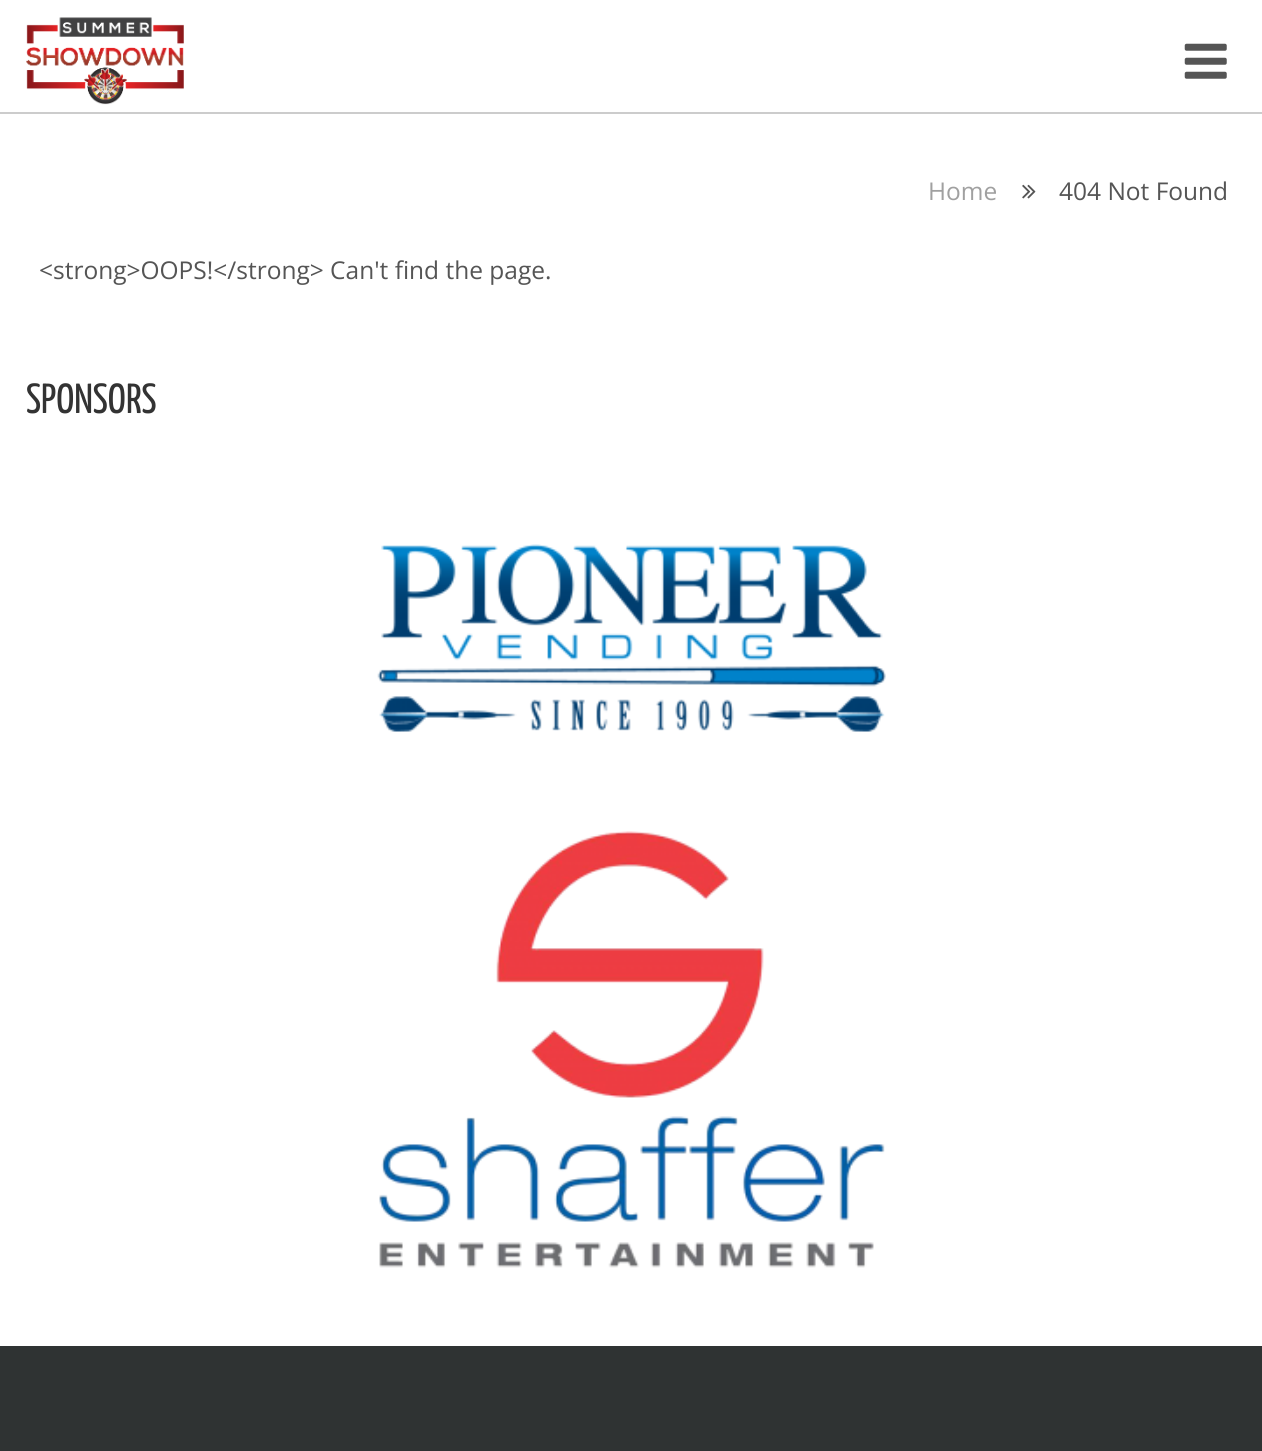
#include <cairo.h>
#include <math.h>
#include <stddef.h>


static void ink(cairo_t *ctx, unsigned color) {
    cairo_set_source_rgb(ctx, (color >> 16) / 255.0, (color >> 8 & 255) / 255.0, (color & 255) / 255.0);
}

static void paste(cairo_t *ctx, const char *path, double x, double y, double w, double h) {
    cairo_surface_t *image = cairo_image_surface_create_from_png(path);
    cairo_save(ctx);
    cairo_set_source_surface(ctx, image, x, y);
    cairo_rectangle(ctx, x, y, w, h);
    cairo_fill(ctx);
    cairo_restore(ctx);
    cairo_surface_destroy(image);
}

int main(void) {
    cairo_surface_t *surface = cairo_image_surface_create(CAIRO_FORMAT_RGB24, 1262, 1451);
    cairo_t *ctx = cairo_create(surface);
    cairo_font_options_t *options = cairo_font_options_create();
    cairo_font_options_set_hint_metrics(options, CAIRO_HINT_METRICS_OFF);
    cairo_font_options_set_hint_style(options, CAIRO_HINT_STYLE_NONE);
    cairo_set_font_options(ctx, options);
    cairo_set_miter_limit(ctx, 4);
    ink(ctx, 0xFFFFFF);
    cairo_paint(ctx);
    ink(ctx, 0xCCCCCC);
    cairo_rectangle(ctx, 0, 112, 1262, 2);
    cairo_fill(ctx);
    paste(ctx, "media/1.png", 26, 17, 158, 88);
    paste(ctx, "media/2.png", 1184, 43, 43, 36);
    cairo_select_font_face(ctx, "Open Sans", CAIRO_FONT_SLANT_NORMAL, CAIRO_FONT_WEIGHT_NORMAL);
    cairo_set_font_size(ctx, 24.5);
    ink(ctx, 0xA0A0A0);
    cairo_move_to(ctx, 928, 200);
    cairo_show_text(ctx, "Home");
    paste(ctx, "media/3.png", 1022, 184, 14, 15);
    ink(ctx, 0x555555);
    cairo_move_to(ctx, 1059, 200);
    cairo_show_text(ctx, "404 Not Found");
    cairo_move_to(ctx, 39, 279);
    cairo_show_text(ctx, "<strong>OOPS!</strong> Can't find the page.");
    cairo_select_font_face(ctx, "Yanone Kaffeesatz ExtraLight", CAIRO_FONT_SLANT_NORMAL, CAIRO_FONT_WEIGHT_NORMAL);
    cairo_set_font_size(ctx, 42);
    ink(ctx, 0x333333);
    cairo_move_to(ctx, 26, 413);
    cairo_show_text(ctx, "SPONSORS");
    paste(ctx, "media/4.png", 377, 544, 509, 188);
    paste(ctx, "media/5.png", 379, 831, 506, 437);
    ink(ctx, 0x2F3333);
    cairo_rectangle(ctx, 0, 1346, 1262, 105);
    cairo_fill(ctx);
    cairo_surface_write_to_png(surface, "image.png");
    cairo_font_options_destroy(options);
    cairo_destroy(ctx);
    cairo_surface_destroy(surface);
    return 0;
}
